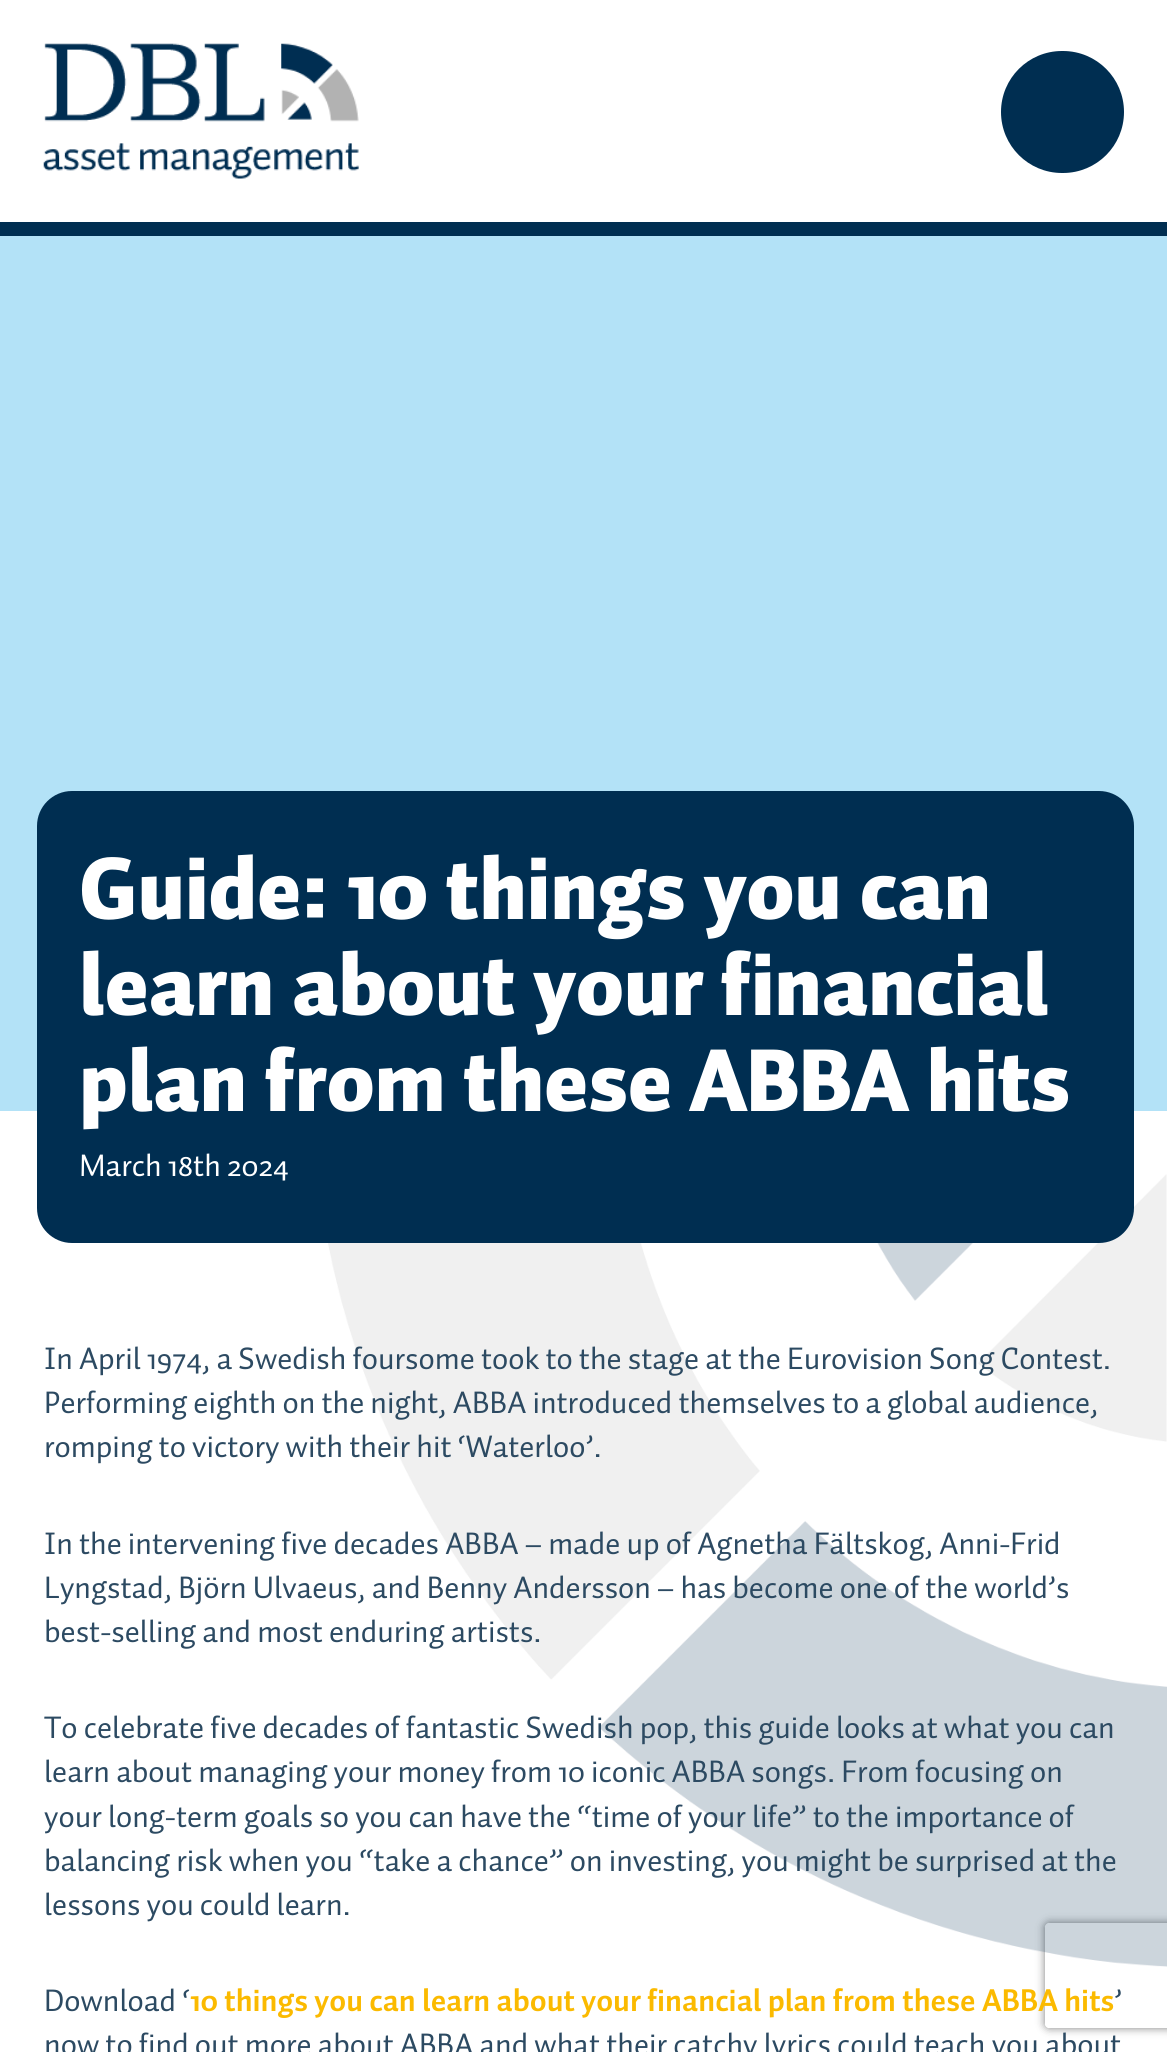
#include <cairo.h>
#include <math.h>
#include <stddef.h>

typedef struct { double x, y; const char *s; } line_t;

static void ink(cairo_t *ctx, unsigned color) {
    cairo_set_source_rgb(ctx, (color >> 16) / 255.0, (color >> 8 & 255) / 255.0, (color & 255) / 255.0);
}

static void round_path(cairo_t *ctx, double x, double y, double w, double h, double r) {
    cairo_new_sub_path(ctx);
    cairo_arc(ctx, x + w - r, y + h - r, r, 0, M_PI / 2);
    cairo_arc(ctx, x + r, y + h - r, r, M_PI / 2, M_PI);
    cairo_arc(ctx, x + r, y + r, r, M_PI, 1.5 * M_PI);
    cairo_arc(ctx, x + w - r, y + r, r, 1.5 * M_PI, 2 * M_PI);
    cairo_close_path(ctx);
}

static void blur_box(cairo_t *ctx, double x, double y, double w, double h, double r, double blur, double alpha) {
    cairo_push_group_with_content(ctx, CAIRO_CONTENT_ALPHA);
    cairo_set_operator(ctx, CAIRO_OPERATOR_SOURCE);
    for (int i = 15; i >= -15 && fmin(w, h) + blur * i / 3 > 0; i -= 2) {
        double e = blur * i / 6;
        cairo_set_source_rgba(ctx, 0, 0, 0, alpha * erfc((i - 1) / 8.5) / 2);
        round_path(ctx, x - e, y - e, w + 2 * e, h + 2 * e, fmax(0, fmin(r + e + blur * .6, fmin(w, h) / 2 + e)));
        cairo_fill(ctx);
    }
    cairo_pattern_t *soft = cairo_pop_group(ctx);
    cairo_mask(ctx, soft);
    cairo_pattern_destroy(soft);
}

static void paste(cairo_t *ctx, const char *path, double x, double y, double w, double h) {
    cairo_surface_t *image = cairo_image_surface_create_from_png(path);
    cairo_save(ctx);
    cairo_set_source_surface(ctx, image, x, y);
    cairo_rectangle(ctx, x, y, w, h);
    cairo_fill(ctx);
    cairo_restore(ctx);
    cairo_surface_destroy(image);
}

int main(void) {
    cairo_surface_t *surface = cairo_image_surface_create(CAIRO_FORMAT_RGB24, 1167, 2052);
    cairo_t *ctx = cairo_create(surface);
    cairo_font_options_t *options = cairo_font_options_create();
    cairo_font_options_set_hint_metrics(options, CAIRO_HINT_METRICS_OFF);
    cairo_font_options_set_hint_style(options, CAIRO_HINT_STYLE_NONE);
    cairo_set_font_options(ctx, options);
    cairo_set_miter_limit(ctx, 4);
    ink(ctx, 0xFFFFFF);
    cairo_paint(ctx);
    ink(ctx, 0x002E51);
    cairo_rectangle(ctx, 0, 222, 1167, 14);
    cairo_fill(ctx);
    paste(ctx, "media/1.png", 43, 43, 316, 136);
    round_path(ctx, 1001, 51, 123, 122, 61);
    cairo_fill(ctx);
    cairo_set_source_rgba(ctx, 0, 0.624, 0.89, 0.3);
    cairo_rectangle(ctx, 0, 236, 1167, 875);
    cairo_fill(ctx);
    cairo_save(ctx);
    cairo_set_fill_rule(ctx, CAIRO_FILL_RULE_EVEN_ODD);
    cairo_new_path(ctx);
    cairo_move_to(ctx, 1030, 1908);
    cairo_line_to(ctx, 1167, 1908);
    cairo_line_to(ctx, 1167, 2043);
    cairo_line_to(ctx, 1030, 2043);
    cairo_close_path(ctx);
    cairo_move_to(ctx, 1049, 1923);
    cairo_line_to(ctx, 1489, 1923);
    cairo_curve_to(ctx, 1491, 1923, 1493, 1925, 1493, 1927);
    cairo_line_to(ctx, 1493, 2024);
    cairo_curve_to(ctx, 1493, 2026, 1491, 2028, 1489, 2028);
    cairo_line_to(ctx, 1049, 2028);
    cairo_curve_to(ctx, 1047, 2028, 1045, 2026, 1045, 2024);
    cairo_line_to(ctx, 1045, 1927);
    cairo_curve_to(ctx, 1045, 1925, 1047, 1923, 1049, 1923);
    cairo_close_path(ctx);
    cairo_clip(ctx);
    ink(ctx, 0x808080);
    blur_box(ctx, 1045, 1923, 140, 105, 4, 4.5, 1);
    cairo_restore(ctx);
    paste(ctx, "media/2.png", 328, 1174, 839, 793);
    ink(ctx, 0x002E51);
    round_path(ctx, 37, 791, 1097, 452, 35);
    cairo_fill(ctx);
    cairo_select_font_face(ctx, "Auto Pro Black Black", CAIRO_FONT_SLANT_NORMAL, CAIRO_FONT_WEIGHT_NORMAL);
    cairo_set_font_size(ctx, 87.5);
    ink(ctx, 0xFFFFFF);
    {
        static const line_t items[] = {
            {79, 919, "Guide: 10 things you can"},
            {79, 1015, "learn about your financial"},
            {79, 1111, "plan from these ABBA hits"},
        };
        for (size_t i = 0; i < sizeof items / sizeof *items; i++) {
            cairo_move_to(ctx, items[i].x, items[i].y);
            cairo_show_text(ctx, items[i].s);
        }
    }
    cairo_select_font_face(ctx, "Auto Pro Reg", CAIRO_FONT_SLANT_NORMAL, CAIRO_FONT_WEIGHT_NORMAL);
    cairo_set_font_size(ctx, 31.5);
    cairo_move_to(ctx, 79, 1176);
    cairo_show_text(ctx, "March 18th 2024");
    ink(ctx, 0x2C4A62);
    {
        static const line_t items[] = {
            {44, 1369, "In April 1974, a Swedish foursome took to the stage at the Eurovision Song Contest."},
            {44, 1413, "Performing eighth on the night, ABBA introduced themselves to a global audience,"},
            {44, 1457, "romping to victory with their hit ‘Waterloo’."},
            {44, 1554, "In the intervening five decades ABBA – made up of Agnetha Fältskog, Anni-Frid"},
            {44, 1598, "Lyngstad, Björn Ulvaeus, and Benny Andersson – has become one of the world’s"},
            {44, 1642, "best-selling and most enduring artists."},
            {44, 1738, "To celebrate five decades of fantastic Swedish pop, this guide looks at what you can"},
            {44, 1782, "learn about managing your money from 10 iconic ABBA songs. From focusing on"},
            {44, 1827, "your long-term goals so you can have the “time of your life” to the importance of"},
            {44, 1871, "balancing risk when you “take a chance” on investing, you might be surprised at the"},
            {44, 1915, "lessons you could learn."},
            {44, 2011, "Download ‘"},
        };
        for (size_t i = 0; i < sizeof items / sizeof *items; i++) {
            cairo_move_to(ctx, items[i].x, items[i].y);
            cairo_show_text(ctx, items[i].s);
        }
    }
    cairo_select_font_face(ctx, "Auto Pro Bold", CAIRO_FONT_SLANT_NORMAL, CAIRO_FONT_WEIGHT_BOLD);
    ink(ctx, 0xFBBA00);
    cairo_move_to(ctx, 190, 2011);
    cairo_show_text(ctx, "10 things you can learn about your financial plan from these ABBA hits");
    cairo_select_font_face(ctx, "Auto Pro Reg", CAIRO_FONT_SLANT_NORMAL, CAIRO_FONT_WEIGHT_NORMAL);
    ink(ctx, 0x2C4A62);
    cairo_move_to(ctx, 1114, 2011);
    cairo_show_text(ctx, "’");
    cairo_move_to(ctx, 44, 2055);
    cairo_show_text(ctx, "now to find out more about ABBA and what their catchy lyrics could teach you about");
    cairo_surface_write_to_png(surface, "image.png");
    cairo_font_options_destroy(options);
    cairo_destroy(ctx);
    cairo_surface_destroy(surface);
    return 0;
}
